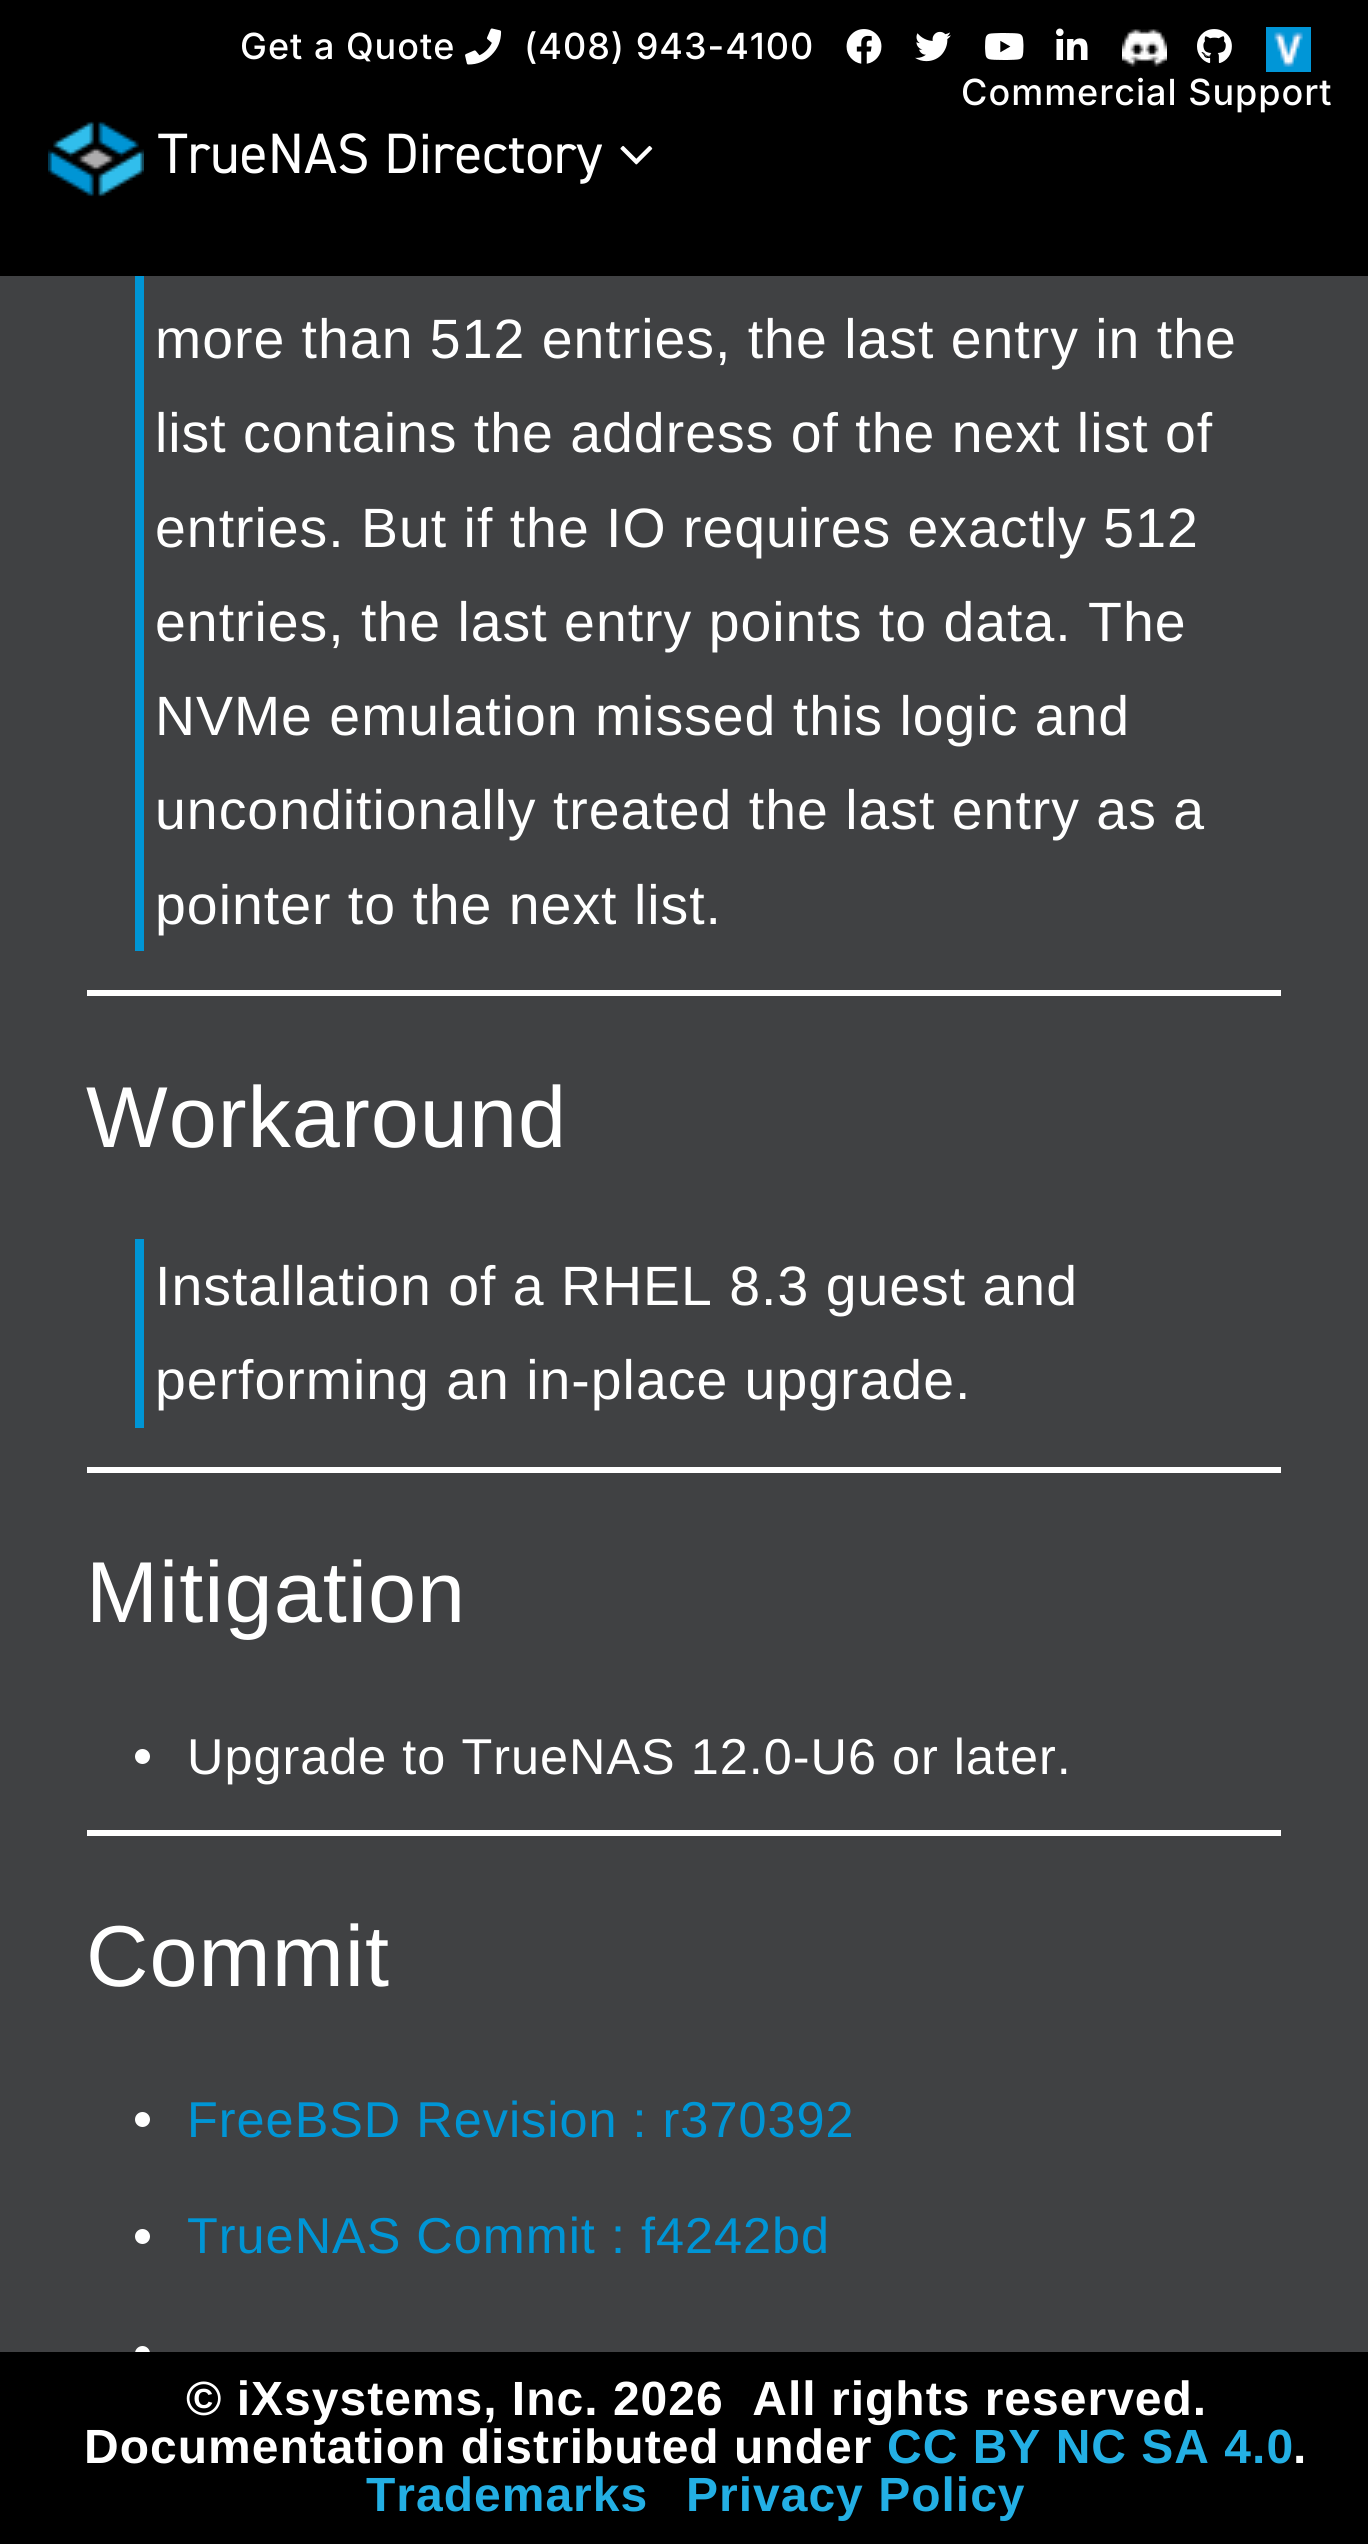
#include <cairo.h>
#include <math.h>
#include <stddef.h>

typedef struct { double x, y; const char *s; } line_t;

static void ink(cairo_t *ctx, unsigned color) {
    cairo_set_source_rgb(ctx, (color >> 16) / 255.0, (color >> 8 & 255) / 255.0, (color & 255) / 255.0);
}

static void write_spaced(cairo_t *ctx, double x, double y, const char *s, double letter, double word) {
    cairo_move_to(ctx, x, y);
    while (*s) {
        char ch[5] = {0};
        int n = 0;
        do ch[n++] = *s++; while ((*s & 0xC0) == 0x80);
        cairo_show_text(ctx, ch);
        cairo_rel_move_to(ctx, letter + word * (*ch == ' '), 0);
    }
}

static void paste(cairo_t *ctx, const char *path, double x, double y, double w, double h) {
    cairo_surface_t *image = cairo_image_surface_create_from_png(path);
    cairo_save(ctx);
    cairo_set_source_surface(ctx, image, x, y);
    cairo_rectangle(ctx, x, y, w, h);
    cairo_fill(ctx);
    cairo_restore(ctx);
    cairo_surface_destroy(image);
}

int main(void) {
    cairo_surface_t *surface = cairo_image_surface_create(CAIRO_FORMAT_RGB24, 1368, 2544);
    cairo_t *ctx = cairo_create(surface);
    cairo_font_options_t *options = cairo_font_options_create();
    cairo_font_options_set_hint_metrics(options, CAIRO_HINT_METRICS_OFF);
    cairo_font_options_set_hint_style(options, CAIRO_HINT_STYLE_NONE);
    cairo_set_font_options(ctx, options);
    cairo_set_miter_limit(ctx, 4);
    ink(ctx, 0x404143);
    cairo_paint(ctx);
    ink(ctx, 0x000000);
    cairo_rectangle(ctx, 0, 0, 1368, 276);
    cairo_fill(ctx);
    cairo_select_font_face(ctx, "Inter Medium", CAIRO_FONT_SLANT_NORMAL, CAIRO_FONT_WEIGHT_NORMAL);
    cairo_set_font_size(ctx, 36);
    ink(ctx, 0xFFFFFF);
    write_spaced(ctx, 240, 59, "Get a Quote", 1, 0);
    paste(ctx, "media/1.png", 465, 28, 37, 37);
    write_spaced(ctx, 524, 59, "(408) 943-4100", 1, 0);
    paste(ctx, "media/2.png", 846, 29, 36, 35);
    paste(ctx, "media/3.png", 915, 31, 36, 31);
    paste(ctx, "media/4.png", 985, 33, 39, 27);
    paste(ctx, "media/5.png", 1056, 28, 32, 32);
    paste(ctx, "media/6.png", 1122, 29, 45, 38);
    paste(ctx, "media/7.png", 1197, 29, 35, 35);
    paste(ctx, "media/8.png", 1266, 27, 45, 45);
    write_spaced(ctx, 961, 105, "Commercial Support", 1, 0);
    paste(ctx, "media/9.png", 48, 121, 96, 76);
    cairo_select_font_face(ctx, "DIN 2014", CAIRO_FONT_SLANT_NORMAL, CAIRO_FONT_WEIGHT_NORMAL);
    cairo_set_font_size(ctx, 57);
    cairo_move_to(ctx, 158, 173);
    cairo_show_text(ctx, "TrueNAS Directory");
    paste(ctx, "media/10.png", 620, 145, 33, 20);
    ink(ctx, 0x0095D5);
    cairo_rectangle(ctx, 135, 276, 9, 675);
    cairo_fill(ctx);
    cairo_select_font_face(ctx, "Liberation Sans", CAIRO_FONT_SLANT_NORMAL, CAIRO_FONT_WEIGHT_NORMAL);
    cairo_set_font_size(ctx, 55.4);
    ink(ctx, 0xFFFFFF);
    {
        static const line_t items[] = {
            {155, 358, "more than 512 entries, the last entry in the"},
            {155, 452, "list contains the address of the next list of"},
            {155, 547, "entries. But if the IO requires exactly 512"},
            {155, 641, "entries, the last entry points to data. The"},
            {155, 735, "NVMe emulation missed this logic and"},
            {155, 829, "unconditionally treated the last entry as a"},
            {155, 924, "pointer to the next list."},
        };
        for (size_t i = 0; i < sizeof items / sizeof *items; i++) {
            write_spaced(ctx, items[i].x, items[i].y, items[i].s, 1, 0);
        }
    }
    cairo_rectangle(ctx, 87, 990, 1194, 6);
    cairo_fill(ctx);
    cairo_set_font_size(ctx, 86.5);
    write_spaced(ctx, 86, 1147, "Workaround", 1, 0);
    ink(ctx, 0x0095D5);
    cairo_rectangle(ctx, 135, 1239, 9, 189);
    cairo_fill(ctx);
    cairo_set_font_size(ctx, 55.4);
    ink(ctx, 0xFFFFFF);
    write_spaced(ctx, 155, 1305, "Installation of a RHEL 8.3 guest and", 1, 0);
    write_spaced(ctx, 155, 1399, "performing an in-place upgrade.", 1, 0);
    cairo_rectangle(ctx, 87, 1467, 1194, 6);
    cairo_fill(ctx);
    cairo_set_font_size(ctx, 86.5);
    write_spaced(ctx, 86, 1622, "Mitigation", 1, 0);
    cairo_new_path(ctx);
    cairo_arc(ctx, 142.5, 1756.5, 7.5, 0, 2 * M_PI);
    cairo_fill(ctx);
    cairo_set_font_size(ctx, 50.4);
    write_spaced(ctx, 187, 1774, "Upgrade to TrueNAS 12.0-U6 or later.", 1, 0);
    cairo_rectangle(ctx, 87, 1830, 1194, 6);
    cairo_fill(ctx);
    cairo_set_font_size(ctx, 86.5);
    write_spaced(ctx, 86, 1986, "Commit", 1, 0);
    cairo_new_path(ctx);
    cairo_arc(ctx, 142.5, 2119.5, 7.5, 0, 2 * M_PI);
    cairo_fill(ctx);
    cairo_set_font_size(ctx, 50.4);
    ink(ctx, 0x0095D5);
    write_spaced(ctx, 187, 2137, "FreeBSD Revision : r370392", 1, 0);
    ink(ctx, 0xFFFFFF);
    cairo_new_path(ctx);
    cairo_arc(ctx, 142.5, 2236.5, 7.5, 0, 2 * M_PI);
    cairo_fill(ctx);
    ink(ctx, 0x0095D5);
    write_spaced(ctx, 187, 2253, "TrueNAS Commit : f4242bd", 1, 0);
    ink(ctx, 0xFFFFFF);
    cairo_new_path(ctx);
    cairo_arc(ctx, 142.5, 2353.5, 7.5, 0, 2 * M_PI);
    cairo_fill(ctx);
    ink(ctx, 0x000000);
    cairo_rectangle(ctx, 0, 2352, 1368, 192);
    cairo_fill(ctx);
    cairo_select_font_face(ctx, "Liberation Sans", CAIRO_FONT_SLANT_NORMAL, CAIRO_FONT_WEIGHT_BOLD);
    cairo_set_font_size(ctx, 48);
    ink(ctx, 0xFFFFFF);
    write_spaced(ctx, 186, 2415, "© iXsystems, Inc. 2026  All rights reserved.", 1, 0);
    write_spaced(ctx, 84, 2463, "Documentation distributed under", 1, 0);
    ink(ctx, 0x23AFE4);
    write_spaced(ctx, 887, 2463, "CC BY NC SA 4.0", 1, 0);
    ink(ctx, 0xFFFFFF);
    write_spaced(ctx, 1293, 2463, ".", 1, 0);
    ink(ctx, 0x23AFE4);
    write_spaced(ctx, 366, 2511, "Trademarks", 1, 0);
    write_spaced(ctx, 686, 2511, "Privacy Policy", 1, 0);
    cairo_surface_write_to_png(surface, "image.png");
    cairo_font_options_destroy(options);
    cairo_destroy(ctx);
    cairo_surface_destroy(surface);
    return 0;
}
